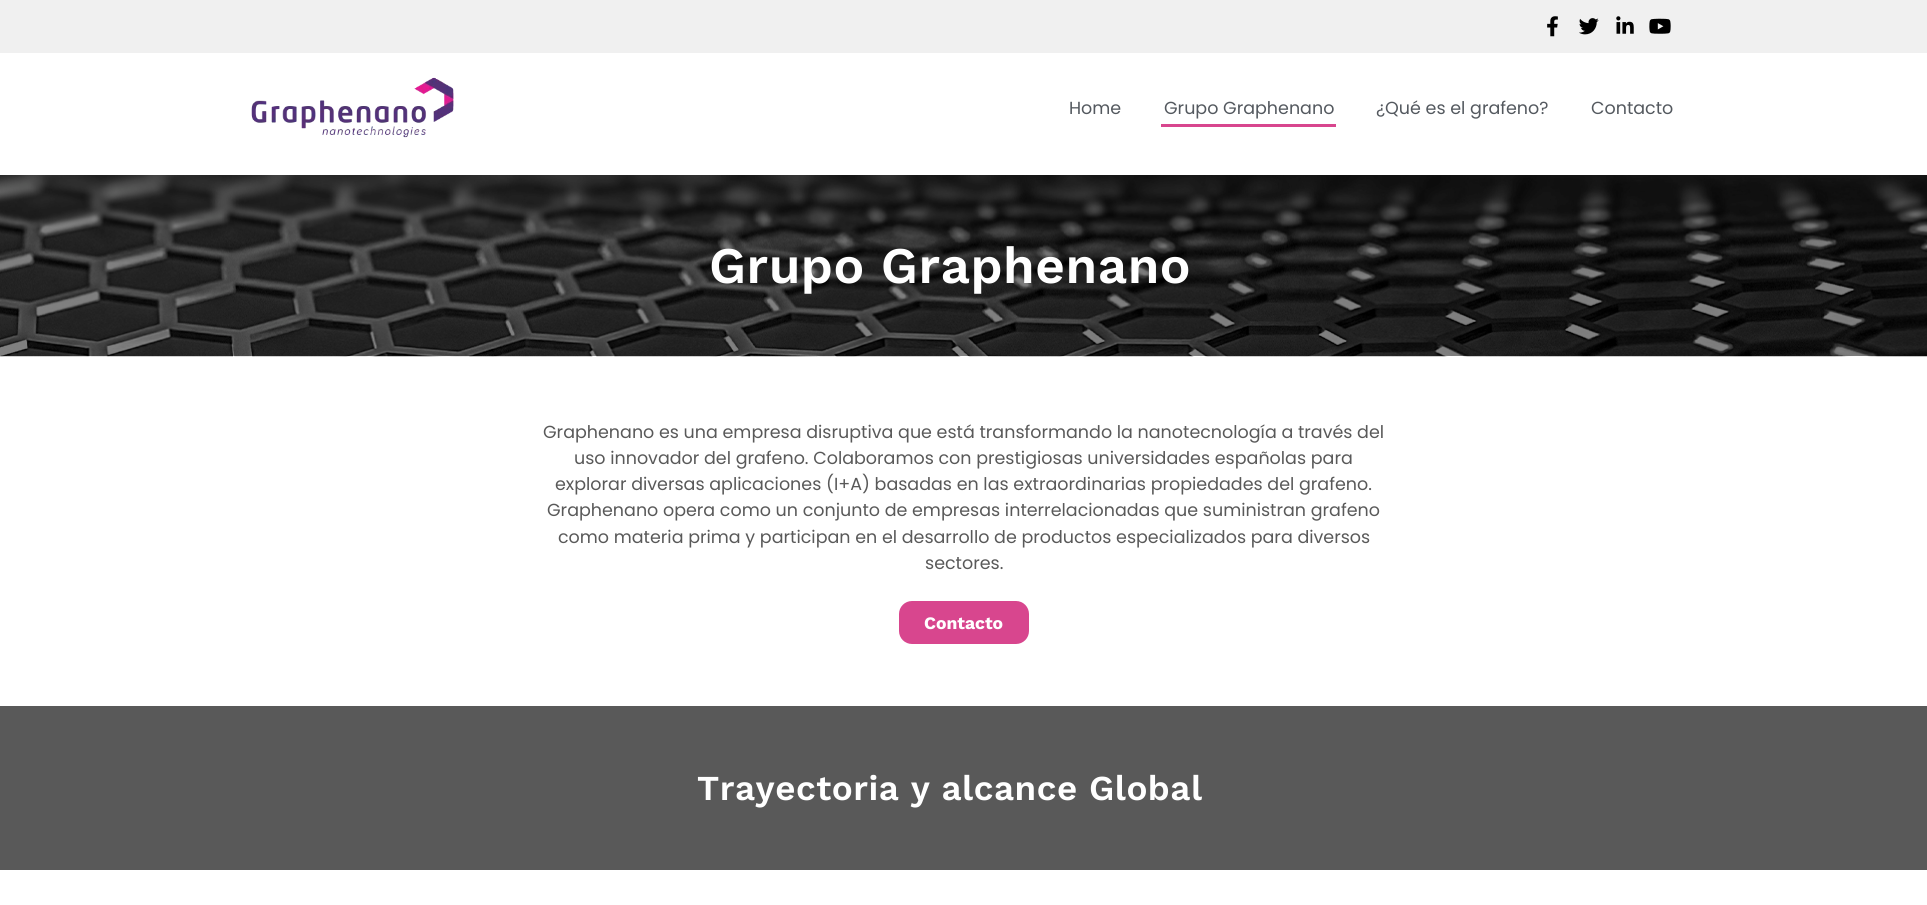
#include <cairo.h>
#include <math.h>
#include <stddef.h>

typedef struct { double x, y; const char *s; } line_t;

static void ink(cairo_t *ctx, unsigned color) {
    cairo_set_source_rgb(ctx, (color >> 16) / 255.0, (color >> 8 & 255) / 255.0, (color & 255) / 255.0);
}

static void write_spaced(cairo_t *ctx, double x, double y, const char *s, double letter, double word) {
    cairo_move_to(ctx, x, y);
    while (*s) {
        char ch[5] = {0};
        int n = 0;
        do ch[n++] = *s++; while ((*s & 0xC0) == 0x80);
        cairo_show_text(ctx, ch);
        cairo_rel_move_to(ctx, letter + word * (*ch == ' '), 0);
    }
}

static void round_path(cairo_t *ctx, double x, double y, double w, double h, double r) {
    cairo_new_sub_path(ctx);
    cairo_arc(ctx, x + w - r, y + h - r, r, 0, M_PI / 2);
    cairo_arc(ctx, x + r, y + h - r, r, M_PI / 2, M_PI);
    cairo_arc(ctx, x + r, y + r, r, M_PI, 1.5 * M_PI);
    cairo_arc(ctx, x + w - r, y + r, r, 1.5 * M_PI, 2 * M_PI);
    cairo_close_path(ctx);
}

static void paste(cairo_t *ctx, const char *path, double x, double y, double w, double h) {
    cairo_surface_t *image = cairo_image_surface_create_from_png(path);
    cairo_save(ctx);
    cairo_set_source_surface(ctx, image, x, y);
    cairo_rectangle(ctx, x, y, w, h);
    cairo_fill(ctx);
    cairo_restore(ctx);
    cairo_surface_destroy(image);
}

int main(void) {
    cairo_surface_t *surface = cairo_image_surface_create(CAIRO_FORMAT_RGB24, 1927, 905);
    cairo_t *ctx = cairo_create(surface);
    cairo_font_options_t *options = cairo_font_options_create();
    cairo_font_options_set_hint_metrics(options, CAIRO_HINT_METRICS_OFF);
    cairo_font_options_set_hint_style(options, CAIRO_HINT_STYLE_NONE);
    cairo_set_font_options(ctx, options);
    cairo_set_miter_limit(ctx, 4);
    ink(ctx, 0xFFFFFF);
    cairo_paint(ctx);
    ink(ctx, 0xF0F0F0);
    cairo_rectangle(ctx, 0, 0, 1927, 53);
    cairo_fill(ctx);
    paste(ctx, "media/1.png", 1547, 16, 11, 21);
    paste(ctx, "media/2.png", 1579, 18, 20, 17);
    paste(ctx, "media/3.png", 1616, 16, 18, 18);
    paste(ctx, "media/4.png", 1649, 18, 22, 16);
    paste(ctx, "media/5.png", 251, 77, 203, 61);
    cairo_select_font_face(ctx, "Poppins", CAIRO_FONT_SLANT_NORMAL, CAIRO_FONT_WEIGHT_NORMAL);
    cairo_set_font_size(ctx, 17.5);
    ink(ctx, 0x54595F);
    cairo_move_to(ctx, 1069, 114);
    cairo_show_text(ctx, "Home");
    cairo_move_to(ctx, 1164, 114);
    cairo_show_text(ctx, "Grupo Graphenano");
    ink(ctx, 0xD8468E);
    cairo_rectangle(ctx, 1161, 124, 175, 3);
    cairo_fill(ctx);
    ink(ctx, 0x54595F);
    cairo_move_to(ctx, 1376, 114);
    cairo_show_text(ctx, "¿Qué es el grafeno?");
    cairo_move_to(ctx, 1591, 114);
    cairo_show_text(ctx, "Contacto");
    paste(ctx, "media/6.png", 0, 175, 1927, 182);
    cairo_select_font_face(ctx, "Work Sans SemiBold", CAIRO_FONT_SLANT_NORMAL, CAIRO_FONT_WEIGHT_NORMAL);
    cairo_set_font_size(ctx, 51.25);
    ink(ctx, 0xFFFFFF);
    write_spaced(ctx, 709, 283, "Grupo Graphenano", 0.5, 0);
    cairo_select_font_face(ctx, "Poppins", CAIRO_FONT_SLANT_NORMAL, CAIRO_FONT_WEIGHT_NORMAL);
    cairo_set_font_size(ctx, 17.5);
    ink(ctx, 0x595959);
    {
        static const line_t items[] = {
            {543, 438, "Graphenano es una empresa disruptiva que está transformando la nanotecnología a través del"},
            {574, 464, "uso innovador del grafeno. Colaboramos con prestigiosas universidades españolas para"},
            {555, 490, "explorar diversas aplicaciones (I+A) basadas en las extraordinarias propiedades del grafeno."},
            {547, 516, "Graphenano opera como un conjunto de empresas interrelacionadas que suministran grafeno"},
            {558, 543, "como materia prima y participan en el desarrollo de productos especializados para diversos"},
            {925, 569, "sectores."},
        };
        for (size_t i = 0; i < sizeof items / sizeof *items; i++) {
            cairo_move_to(ctx, items[i].x, items[i].y);
            cairo_show_text(ctx, items[i].s);
        }
    }
    ink(ctx, 0xD8468E);
    round_path(ctx, 899, 601, 130, 43, 13);
    cairo_fill(ctx);
    cairo_select_font_face(ctx, "Work Sans", CAIRO_FONT_SLANT_NORMAL, CAIRO_FONT_WEIGHT_BOLD);
    ink(ctx, 0xFFFFFF);
    cairo_move_to(ctx, 924, 629);
    cairo_show_text(ctx, "Contacto");
    ink(ctx, 0x595959);
    cairo_rectangle(ctx, 0, 706, 1927, 164);
    cairo_fill(ctx);
    cairo_select_font_face(ctx, "Work Sans SemiBold", CAIRO_FONT_SLANT_NORMAL, CAIRO_FONT_WEIGHT_NORMAL);
    cairo_set_font_size(ctx, 35);
    ink(ctx, 0xFFFFFF);
    write_spaced(ctx, 697, 800, "Trayectoria y alcance Global", 0.5, 0);
    cairo_surface_write_to_png(surface, "image.png");
    cairo_font_options_destroy(options);
    cairo_destroy(ctx);
    cairo_surface_destroy(surface);
    return 0;
}
